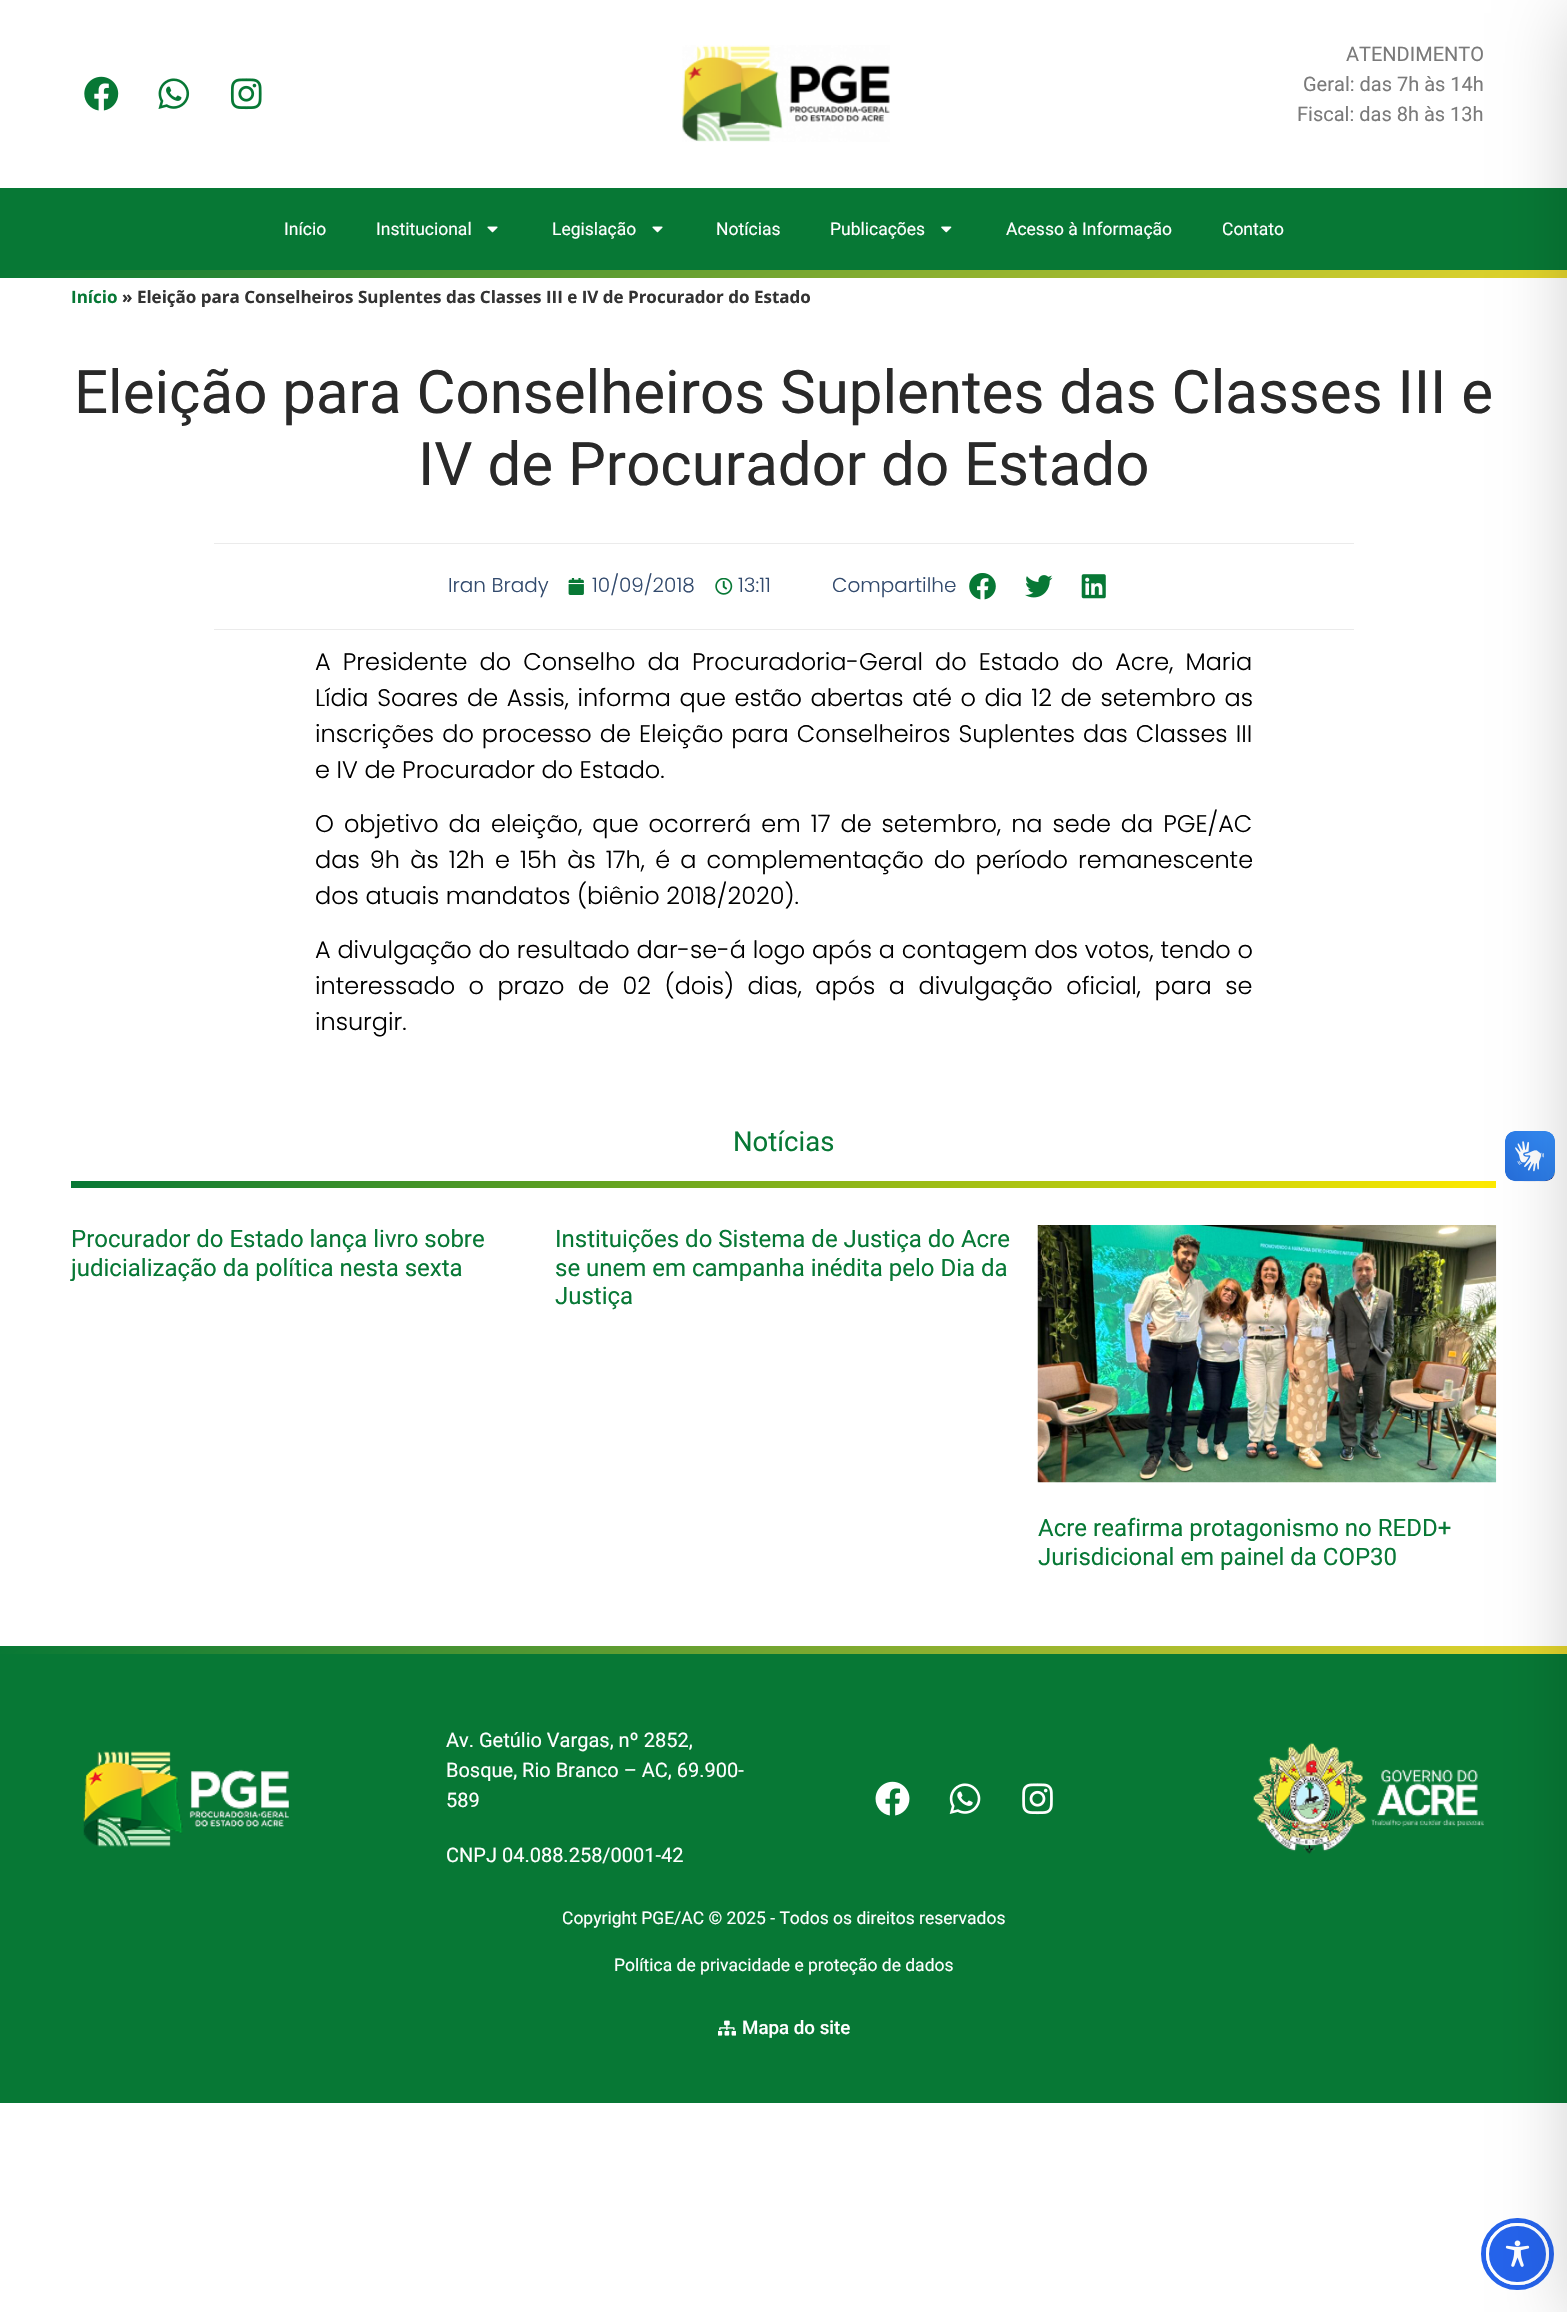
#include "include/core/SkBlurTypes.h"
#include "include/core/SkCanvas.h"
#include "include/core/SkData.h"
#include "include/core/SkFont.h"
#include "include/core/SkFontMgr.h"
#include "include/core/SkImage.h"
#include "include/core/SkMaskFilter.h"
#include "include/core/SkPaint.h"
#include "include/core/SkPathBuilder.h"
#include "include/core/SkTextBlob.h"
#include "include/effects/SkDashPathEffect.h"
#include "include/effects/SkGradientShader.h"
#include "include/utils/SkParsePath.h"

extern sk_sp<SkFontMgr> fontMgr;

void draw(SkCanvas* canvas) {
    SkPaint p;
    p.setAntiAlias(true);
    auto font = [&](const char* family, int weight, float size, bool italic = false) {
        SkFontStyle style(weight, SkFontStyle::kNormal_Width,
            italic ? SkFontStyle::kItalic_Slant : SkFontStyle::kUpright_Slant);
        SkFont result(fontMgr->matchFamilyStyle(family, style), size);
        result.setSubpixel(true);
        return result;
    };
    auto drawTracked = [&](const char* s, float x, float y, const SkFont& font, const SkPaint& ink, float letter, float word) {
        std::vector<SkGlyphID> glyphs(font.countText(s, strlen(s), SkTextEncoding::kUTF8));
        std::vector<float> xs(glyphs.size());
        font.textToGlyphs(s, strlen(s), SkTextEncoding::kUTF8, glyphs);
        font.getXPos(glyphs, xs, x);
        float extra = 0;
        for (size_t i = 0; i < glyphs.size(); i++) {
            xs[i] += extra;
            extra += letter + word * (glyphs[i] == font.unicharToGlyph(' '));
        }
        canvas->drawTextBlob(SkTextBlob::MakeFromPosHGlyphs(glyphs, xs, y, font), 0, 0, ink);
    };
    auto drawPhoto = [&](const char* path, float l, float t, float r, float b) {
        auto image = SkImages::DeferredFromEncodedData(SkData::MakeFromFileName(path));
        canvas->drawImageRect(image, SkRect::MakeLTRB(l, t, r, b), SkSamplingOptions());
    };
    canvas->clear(0xFFFFFFFF);
    drawPhoto("media/1.png", 84, 76, 119, 111);
    drawPhoto("media/2.png", 158, 78, 190, 109);
    drawPhoto("media/3.png", 230, 78, 262, 110);
    drawPhoto("media/4.png", 682, 45, 890, 142);
    auto font1 = font("Roboto", 400, 20);
    p.setColor(0xFF7A7A7A);
    {
        const struct { const char* s; float x, y; } items[] = {
            {"ATENDIMENTO", 1346, 61},
            {"Geral: das 7h às 14h", 1303, 91},
            {"Fiscal: das 8h às 13h", 1297, 121},
        };
        for (auto [s, x, y] : items) {
            canvas->drawString(s, x, y, font1, p);
        }
    }
    p.setColor(0xFF077835);
    canvas->drawRect(SkRect::MakeLTRB(0, 188, 1567, 270), p);
    auto font2 = font("Roboto", 400, 17.5f);
    p.setColor(0xFFFFFFFF);
    canvas->drawString("Início", 284, 235, font2, p);
    canvas->drawString("Institucional", 376, 235, font2, p);
    drawPhoto("media/5.png", 487, 226, 498, 233);
    canvas->drawString("Legislação", 552, 235, font2, p);
    drawPhoto("media/5.png", 652, 226, 663, 233);
    canvas->drawString("Notícias", 716, 235, font2, p);
    canvas->drawString("Publicações", 830, 235, font2, p);
    drawPhoto("media/6.png", 941, 226, 952, 233);
    canvas->drawString("Acesso à Informação", 1006, 235, font2, p);
    canvas->drawString("Contato", 1222, 235, font2, p);
    {
        const SkColor colors[] = {0xFF077835, 0xFFE5D52C};
        const float stops[] = {0, 1};
        const SkPoint ends[] = {{524, -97}, {1043, 645}};
        p.setShader(SkGradientShader::MakeLinear(ends, colors, stops, 2, SkTileMode::kClamp));
        p.setAlpha(255);
    }
    canvas->drawRect(SkRect::MakeLTRB(0, 270, 1567, 278), p);
    auto font3 = font("Open Sans", 700, 17);
    p.setShader(nullptr);
    p.setColor(0xFF077835);
    canvas->drawString("Início", 71, 303, font3, p);
    p.setColor(0xFF333333);
    canvas->drawString("» Eleição para Conselheiros Suplentes das Classes III e IV de Procurador do Estado", 122, 303, font3, p);
    {
        const SkColor colors[] = {0xFF077835, 0xFFFFEA00};
        const float stops[] = {0, 1};
        const SkPoint ends[] = {{548, 848}, {1020, 1521}};
        p.setShader(SkGradientShader::MakeLinear(ends, colors, stops, 2, SkTileMode::kClamp));
        p.setAlpha(255);
    }
    canvas->drawRect(SkRect::MakeLTRB(71, 1181, 1496, 1188), p);
    drawPhoto("media/12.png", 1037, 1225, 1497, 1483);
    drawPhoto("media/13.png", 1505, 1131, 1555, 1182);
    drawPhoto("media/14.png", 1505, 1131, 1555, 1181);
    {
        const SkColor colors[] = {0xFF077835, 0xFFE5D52C};
        const float stops[] = {0, 1};
        const SkPoint ends[] = {{524, 1279}, {1043, 2021}};
        p.setShader(SkGradientShader::MakeLinear(ends, colors, stops, 2, SkTileMode::kClamp));
        p.setAlpha(255);
    }
    canvas->drawRect(SkRect::MakeLTRB(0, 1646, 1567, 1654), p);
    p.setShader(nullptr);
    p.setColor(0xFF077835);
    canvas->drawRect(SkRect::MakeLTRB(0, 1654, 1567, 2103), p);
    drawPhoto("media/19.png", 1253, 1742, 1484, 1854);
    p.setStyle(SkPaint::kStroke_Style);
    p.setStrokeWidth(5);
    p.setColor(0xFF2563EB);
    canvas->drawRoundRect(SkRect::MakeLTRB(1483.5f, 2220.5f, 1551.5f, 2287.5f), 33.5f, 33.5f, p);
    p.setStyle(SkPaint::kFill_Style);
    canvas->drawRoundRect(SkRect::MakeLTRB(1487.5f, 2224.5f, 1547.5f, 2283.5f), 29.5f, 29.5f, p);
    p.setStyle(SkPaint::kStroke_Style);
    p.setStrokeWidth(3);
    p.setColor(0xFFFFFFFF);
    canvas->drawRoundRect(SkRect::MakeLTRB(1487.5f, 2224.5f, 1547.5f, 2283.5f), 29.5f, 29.5f, p);
    drawPhoto("media/21.png", 1505, 2240, 1530, 2267);
    p.setStyle(SkPaint::kFill_Style);
    p.setColor(0x33000000);
    p.setMaskFilter(SkMaskFilter::MakeBlur(kNormal_SkBlurStyle, 37.5f));
    canvas->drawRect(SkRect::MakeLTRB(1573, 13, 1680, 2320), p);
    p.setMaskFilter(nullptr);
    auto font4 = font("Roboto", 400, 60);
    p.setColor(0xFF292929);
    canvas->drawString("Eleição para Conselheiros Suplentes das Classes III e", 74, 413, font4, p);
    canvas->drawString("IV de Procurador do Estado", 418, 485, font4, p);
    p.setColor(0xFFEBEBEB);
    canvas->drawRect(SkRect::MakeLTRB(214, 543, 1354, 544), p);
    auto font5 = font("Poppins", 300, 20);
    p.setColor(0xFF324A6D);
    canvas->drawString("Iran Brady", 448, 592, font5, p);
    drawPhoto("media/7.png", 568, 578, 584, 595);
    canvas->drawString("10/09/2018", 592, 592, font5, p);
    drawPhoto("media/8.png", 715, 578, 733, 595);
    canvas->drawString("13:11", 738, 592, font5, p);
    canvas->drawString("Compartilhe", 832, 592, font5, p);
    drawPhoto("media/9.png", 969, 573, 996, 600);
    drawPhoto("media/10.png", 1025, 575, 1053, 598);
    drawPhoto("media/11.png", 1081, 574, 1106, 599);
    p.setColor(0xFFEBEBEB);
    canvas->drawRect(SkRect::MakeLTRB(214, 629, 1354, 630), p);
    auto font6 = font("Poppins", 300, 24);
    p.setColor(0xFF000000);
    drawTracked("A Presidente do Conselho da Procuradoria-Geral do Estado do Acre, Maria", 315, 670, font6, p, 0, 5.5f);
    drawTracked("Lídia Soares de Assis, informa que estão abertas até o dia 12 de setembro as", 315, 706, font6, p, 0, 2.1f);
    drawTracked("inscrições do processo de Eleição para Conselheiros Suplentes das Classes III", 315, 742, font6, p, 0, 1.5f);
    canvas->drawString("e IV de Procurador do Estado.", 315, 778, font6, p);
    drawTracked("O objetivo da eleição, que ocorrerá em 17 de setembro, na sede da PGE/AC", 315, 832, font6, p, 0, 3.4f);
    drawTracked("das 9h às 12h e 15h às 17h, é a complementação do período remanescente", 315, 868, font6, p, 0, 3.6f);
    canvas->drawString("dos atuais mandatos (biênio 2018/2020).", 315, 904, font6, p);
    drawTracked("A divulgação do resultado dar-se-á logo após a contagem dos votos, tendo o", 315, 958, font6, p, 0, 0.2f);
    drawTracked("interessado o prazo de 02 (dois) dias, após a divulgação oficial, para se", 315, 994, font6, p, 0, 6.9f);
    canvas->drawString("insurgir.", 315, 1030, font6, p);
    auto font7 = font("Roboto", 400, 27.5f);
    p.setColor(0xFF077835);
    canvas->drawString("Notícias", 733, 1151, font7, p);
    auto font8 = font("Roboto", 400, 24);
    {
        const struct { const char* s; float x, y; } items[] = {
            {"Procurador do Estado lança livro sobre", 71, 1247},
            {"judicialização da política nesta sexta", 71, 1276},
            {"Instituições do Sistema de Justiça do Acre", 555, 1247},
            {"se unem em campanha inédita pelo Dia da", 555, 1276},
            {"Justiça", 555, 1304},
            {"Acre reafirma protagonismo no REDD+", 1038, 1536},
            {"Jurisdicional em painel da COP30", 1038, 1565},
        };
        for (auto [s, x, y] : items) {
            canvas->drawString(s, x, y, font8, p);
        }
    }
    drawPhoto("media/15.png", 83, 1751, 289, 1847);
    p.setColor(0xFFFFFFFF);
    {
        const struct { const char* s; float x, y; } items[] = {
            {"Av. Getúlio Vargas, nº 2852,", 446, 1747},
            {"Bosque, Rio Branco – AC, 69.900-", 446, 1777},
            {"589", 446, 1807},
            {"CNPJ 04.088.258/0001-42", 446, 1862},
        };
        for (auto [s, x, y] : items) {
            canvas->drawString(s, x, y, font1, p);
        }
    }
    drawPhoto("media/16.png", 875, 1781, 910, 1816);
    drawPhoto("media/17.png", 949, 1783, 981, 1814);
    drawPhoto("media/18.png", 1022, 1783, 1053, 1815);
    canvas->drawString("Copyright PGE/AC © 2025 - Todos os direitos reservados", 562, 1924, font2, p);
    canvas->drawString("Política de privacidade e proteção de dados", 614, 1971, font2, p);
    drawPhoto("media/20.png", 718, 2020, 736, 2036);
    auto font9 = font("Roboto", 500, 18.75f);
    canvas->drawString("Mapa do site", 742, 2034, font9, p);
}
